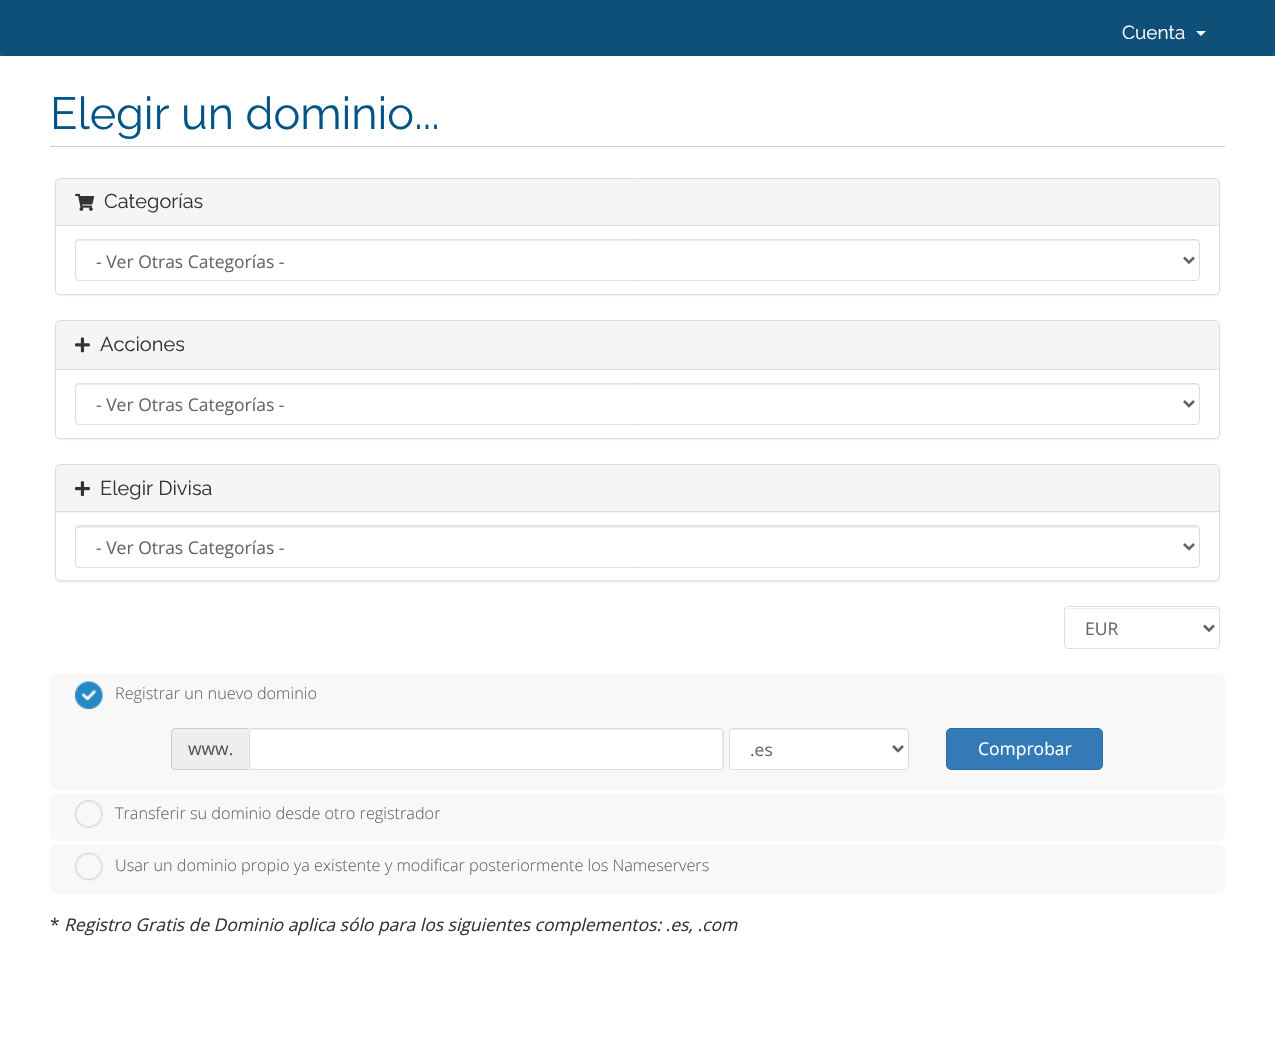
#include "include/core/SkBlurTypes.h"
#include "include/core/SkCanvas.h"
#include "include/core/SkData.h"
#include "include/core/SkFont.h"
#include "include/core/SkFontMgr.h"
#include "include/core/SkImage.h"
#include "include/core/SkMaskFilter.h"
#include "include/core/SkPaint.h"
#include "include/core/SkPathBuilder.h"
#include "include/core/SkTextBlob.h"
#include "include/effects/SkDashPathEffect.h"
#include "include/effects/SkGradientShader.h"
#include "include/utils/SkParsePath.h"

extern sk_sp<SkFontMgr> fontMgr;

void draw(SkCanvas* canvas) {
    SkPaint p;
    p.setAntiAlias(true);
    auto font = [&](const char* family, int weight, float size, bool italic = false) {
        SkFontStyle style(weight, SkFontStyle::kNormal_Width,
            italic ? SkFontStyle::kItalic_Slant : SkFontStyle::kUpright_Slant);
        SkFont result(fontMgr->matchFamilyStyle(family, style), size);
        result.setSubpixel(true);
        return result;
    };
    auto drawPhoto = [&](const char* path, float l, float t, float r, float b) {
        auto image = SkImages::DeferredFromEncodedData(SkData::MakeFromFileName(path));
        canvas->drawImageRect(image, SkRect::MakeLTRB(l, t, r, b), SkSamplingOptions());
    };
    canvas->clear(0xFF006687);
    p.setColor(0xFF0E5077);
    canvas->drawRoundRect(SkRect::MakeLTRB(0, -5, 1275, 56), 5, 5, p);
    auto font1 = font("Raleway", 400, 19);
    p.setColor(0xFFFFFFFF);
    canvas->drawString("Cuenta", 1122, 39, font1, p);
    canvas->drawPath(SkPathBuilder().moveTo(1196, 31).lineTo(1206, 31).lineTo(1201, 36).close().detach(), p);
    canvas->drawRect(SkRect::MakeLTRB(0, 56, 1275, 1053), p);
    p.setColor(0xFFCCCCCC);
    canvas->drawRect(SkRect::MakeLTRB(50, 146, 1225, 147), p);
    auto font2 = font("Raleway", 400, 45);
    p.setColor(0xFF005588);
    canvas->drawString("Elegir un dominio...", 50, 129, font2, p);
    p.setColor(0x0D000000);
    p.setMaskFilter(SkMaskFilter::MakeBlur(kNormal_SkBlurStyle, 0.5f));
    canvas->drawRoundRect(SkRect::MakeLTRB(55, 179, 1220, 296), 5, 5, p);
    p.setMaskFilter(nullptr);
    p.setColor(0xFFFFFFFF);
    canvas->drawRoundRect(SkRect::MakeLTRB(55.5f, 178.5f, 1219.5f, 294.5f), 4.5f, 4.5f, p);
    p.setStyle(SkPaint::kStroke_Style);
    p.setStrokeWidth(1);
    p.setColor(0xFFDDDDDD);
    canvas->drawRoundRect(SkRect::MakeLTRB(55.5f, 178.5f, 1219.5f, 294.5f), 4.5f, 4.5f, p);
    p.setStyle(SkPaint::kFill_Style);
    p.setColor(0xFFF5F5F5);
    canvas->drawPath(SkPathBuilder().moveTo(60, 179).lineTo(1215, 179).cubicTo(1217, 179, 1219, 181, 1219, 183).lineTo(1219, 226).lineTo(56, 226).lineTo(56, 183).cubicTo(56, 181, 58, 179, 60, 179).close().detach(), p);
    p.setColor(0xFFDDDDDD);
    canvas->drawRect(SkRect::MakeLTRB(56, 225, 1219, 226), p);
    drawPhoto("media/1.png", 75, 193, 95, 211);
    auto font3 = font("Raleway", 400, 20);
    p.setColor(0xFF333333);
    canvas->drawString("Categorías", 104, 208, font3, p);
    p.setColor(0xFFECECEC);
    canvas->drawPath(SkPathBuilder().moveTo(79, 241).lineTo(1196, 241).cubicTo(1198, 241, 1199, 242, 1199, 244).cubicTo(1199, 242, 1199, 240, 1196, 240).lineTo(78, 240).cubicTo(76, 240, 76, 242, 76, 244).cubicTo(76, 242, 77, 241, 79, 241).close().detach(), p);
    p.setStyle(SkPaint::kStroke_Style);
    p.setColor(0xFFDDDDDD);
    canvas->drawRoundRect(SkRect::MakeLTRB(75.5f, 239.5f, 1199.5f, 280.5f), 3.5f, 3.5f, p);
    p.setStrokeWidth(2.5f);
    p.setColor(0xFF626262);
    canvas->drawPath(SkPathBuilder().moveTo(1184, 257.5f).lineTo(1189, 262.5f).lineTo(1194, 257.5f).detach(), p);
    auto font4 = font("Open Sans", 400, 17.5f);
    p.setStyle(SkPaint::kFill_Style);
    p.setColor(0xFF666666);
    canvas->drawString("- Ver Otras Categorías -", 96, 268, font4, p);
    p.setColor(0x0D000000);
    p.setMaskFilter(SkMaskFilter::MakeBlur(kNormal_SkBlurStyle, 0.5f));
    canvas->drawRoundRect(SkRect::MakeLTRB(55, 321, 1220, 440), 5, 5, p);
    p.setMaskFilter(nullptr);
    p.setColor(0xFFFFFFFF);
    canvas->drawRoundRect(SkRect::MakeLTRB(55.5f, 320.5f, 1219.5f, 438.5f), 4.5f, 4.5f, p);
    p.setStyle(SkPaint::kStroke_Style);
    p.setStrokeWidth(1);
    p.setColor(0xFFDDDDDD);
    canvas->drawRoundRect(SkRect::MakeLTRB(55.5f, 320.5f, 1219.5f, 438.5f), 4.5f, 4.5f, p);
    p.setStyle(SkPaint::kFill_Style);
    p.setColor(0xFFF5F5F5);
    canvas->drawPath(SkPathBuilder().moveTo(60, 321).lineTo(1215, 321).cubicTo(1217, 321, 1219, 323, 1219, 325).lineTo(1219, 370).lineTo(56, 370).lineTo(56, 325).cubicTo(56, 323, 58, 321, 60, 321).close().detach(), p);
    p.setColor(0xFFDDDDDD);
    canvas->drawRect(SkRect::MakeLTRB(56, 369, 1219, 370), p);
    drawPhoto("media/2.png", 75, 337, 90, 353);
    p.setColor(0xFF333333);
    canvas->drawString("Acciones", 100, 351, font3, p);
    p.setColor(0xFFECECEC);
    canvas->drawPath(SkPathBuilder().moveTo(79, 385).lineTo(1196, 385).cubicTo(1198, 385, 1199, 386, 1199, 388).cubicTo(1199, 386, 1199, 384, 1196, 384).lineTo(78, 384).cubicTo(76, 384, 76, 386, 76, 388).cubicTo(76, 386, 77, 385, 79, 385).close().detach(), p);
    p.setStyle(SkPaint::kStroke_Style);
    p.setColor(0xFFDDDDDD);
    canvas->drawRoundRect(SkRect::MakeLTRB(75.5f, 383.5f, 1199.5f, 424.5f), 3.5f, 3.5f, p);
    p.setStrokeWidth(2.5f);
    p.setColor(0xFF626262);
    canvas->drawPath(SkPathBuilder().moveTo(1184, 401).lineTo(1189, 406).lineTo(1194, 401).detach(), p);
    p.setStyle(SkPaint::kFill_Style);
    p.setColor(0xFF666666);
    canvas->drawString("- Ver Otras Categorías -", 96, 411, font4, p);
    p.setColor(0x0D000000);
    p.setMaskFilter(SkMaskFilter::MakeBlur(kNormal_SkBlurStyle, 0.5f));
    canvas->drawRoundRect(SkRect::MakeLTRB(55, 465, 1220, 583), 5, 5, p);
    p.setMaskFilter(nullptr);
    p.setColor(0xFFFFFFFF);
    canvas->drawRoundRect(SkRect::MakeLTRB(55.5f, 464.5f, 1219.5f, 580.5f), 4.5f, 4.5f, p);
    p.setStyle(SkPaint::kStroke_Style);
    p.setStrokeWidth(1);
    p.setColor(0xFFDDDDDD);
    canvas->drawRoundRect(SkRect::MakeLTRB(55.5f, 464.5f, 1219.5f, 580.5f), 4.5f, 4.5f, p);
    p.setStyle(SkPaint::kFill_Style);
    p.setColor(0xFFF5F5F5);
    canvas->drawPath(SkPathBuilder().moveTo(60, 465).lineTo(1215, 465).cubicTo(1217, 465, 1219, 467, 1219, 469).lineTo(1219, 513).lineTo(56, 513).lineTo(56, 469).cubicTo(56, 467, 58, 465, 60, 465).close().detach(), p);
    p.setColor(0xFFDDDDDD);
    canvas->drawRect(SkRect::MakeLTRB(56, 511, 1219, 512), p);
    drawPhoto("media/3.png", 75, 481, 90, 497);
    p.setColor(0xFF333333);
    canvas->drawString("Elegir Divisa", 100, 495, font3, p);
    p.setColor(0xFFECECEC);
    canvas->drawPath(SkPathBuilder().moveTo(79, 528).lineTo(1196, 528).cubicTo(1198, 528, 1199, 529, 1199, 530).cubicTo(1199, 528, 1199, 526, 1196, 526).lineTo(78, 526).cubicTo(76, 526, 76, 528, 76, 530).cubicTo(76, 529, 77, 528, 79, 528).close().detach(), p);
    p.setStyle(SkPaint::kStroke_Style);
    p.setColor(0xFFDDDDDD);
    canvas->drawRoundRect(SkRect::MakeLTRB(75.5f, 525.5f, 1199.5f, 567.5f), 3.5f, 3.5f, p);
    p.setStrokeWidth(2.5f);
    p.setColor(0xFF626262);
    canvas->drawPath(SkPathBuilder().moveTo(1184, 544).lineTo(1189, 549).lineTo(1194, 544).detach(), p);
    p.setStyle(SkPaint::kFill_Style);
    p.setColor(0xFF666666);
    canvas->drawString("- Ver Otras Categorías -", 96, 554, font4, p);
    p.setColor(0xFFECECEC);
    canvas->drawPath(SkPathBuilder().moveTo(1068, 609).lineTo(1216, 609).cubicTo(1218, 609, 1219, 610, 1219, 611).cubicTo(1219, 609, 1218, 608, 1216, 608).lineTo(1068, 608).cubicTo(1066, 608, 1065, 609, 1065, 611).cubicTo(1065, 610, 1066, 609, 1068, 609).close().detach(), p);
    p.setStyle(SkPaint::kStroke_Style);
    p.setStrokeWidth(1);
    p.setColor(0xFFDDDDDD);
    canvas->drawRoundRect(SkRect::MakeLTRB(1064.5f, 606.5f, 1219.5f, 648.5f), 3.5f, 3.5f, p);
    p.setStrokeWidth(2.5f);
    p.setColor(0xFF626262);
    canvas->drawPath(SkPathBuilder().moveTo(1204, 625.5f).lineTo(1209, 630.5f).lineTo(1214, 625.5f).detach(), p);
    p.setStyle(SkPaint::kFill_Style);
    p.setColor(0xFF666666);
    canvas->drawString("EUR", 1085, 635, font4, p);
    p.setColor(0xFFF8F8F8);
    canvas->drawRoundRect(SkRect::MakeLTRB(50, 673, 1225, 790), 8, 8, p);
    drawPhoto("media/4.png", 75, 681, 103, 709);
    auto font5 = font("Open Sans", 300, 16.25f);
    p.setColor(0xFF666666);
    canvas->drawString("Registrar un nuevo dominio", 115, 699, font5, p);
    p.setColor(0xFFEEEEEE);
    canvas->drawPath(SkPathBuilder().moveTo(176, 728).lineTo(249, 728).lineTo(249, 770).lineTo(176, 770).cubicTo(173, 770, 171, 768, 171, 765).lineTo(171, 733).cubicTo(171, 730, 173, 728, 176, 728).close().detach(), p);
    p.setColor(0xFFCCCCCC);
    canvas->drawPath(SkPathBuilder(SkPathFillType::kEvenOdd).moveTo(176, 728).lineTo(249, 728).lineTo(249, 770).lineTo(176, 770).cubicTo(173, 770, 171, 768, 171, 765).lineTo(171, 732).cubicTo(171, 730, 173, 728, 176, 728).close().moveTo(176, 729).lineTo(249, 729).lineTo(249, 769).lineTo(176, 769).cubicTo(174, 769, 172, 767, 172, 765).lineTo(172, 732).cubicTo(172, 730, 174, 729, 176, 729).close().detach(), p);
    p.setColor(0xFF555555);
    canvas->drawString("www.", 188, 755, font4, p);
    p.setColor(0xFFFFFFFF);
    canvas->drawRoundRect(SkRect::MakeLTRB(249, 728, 724, 770), 4, 4, p);
    p.setColor(0xFFECECEC);
    canvas->drawPath(SkPathBuilder().moveTo(252, 730).lineTo(720, 730).cubicTo(721, 730, 722, 731, 722, 732).lineTo(722, 769).cubicTo(723, 768, 723, 767, 723, 766).lineTo(723, 732).cubicTo(723, 730, 722, 729, 720, 729).lineTo(252, 729).cubicTo(251, 729, 250, 730, 250, 732).cubicTo(250, 731, 251, 730, 252, 730).close().detach(), p);
    p.setStyle(SkPaint::kStroke_Style);
    p.setStrokeWidth(1);
    p.setColor(0xFFDDDDDD);
    canvas->drawRoundRect(SkRect::MakeLTRB(249.5f, 728.5f, 723.5f, 769.5f), 3.5f, 3.5f, p);
    p.setStyle(SkPaint::kFill_Style);
    p.setColor(0xFFFFFFFF);
    canvas->drawRoundRect(SkRect::MakeLTRB(729, 728, 909, 770), 4, 4, p);
    p.setColor(0xFFECECEC);
    canvas->drawPath(SkPathBuilder().moveTo(732, 730).lineTo(905, 730).cubicTo(906, 730, 908, 731, 908, 732).cubicTo(908, 730, 907, 729, 906, 729).lineTo(732, 729).lineTo(731, 730).lineTo(730, 732).cubicTo(730, 731, 731, 730, 732, 730).close().detach(), p);
    p.setStyle(SkPaint::kStroke_Style);
    p.setColor(0xFFDDDDDD);
    canvas->drawRoundRect(SkRect::MakeLTRB(729.5f, 728.5f, 908.5f, 769.5f), 3.5f, 3.5f, p);
    p.setStrokeWidth(2.5f);
    p.setColor(0xFF626262);
    canvas->drawPath(SkPathBuilder().moveTo(893, 746).lineTo(898, 751).lineTo(903, 746).detach(), p);
    p.setStyle(SkPaint::kFill_Style);
    p.setColor(0xFF666666);
    canvas->drawString(".es", 750, 756, font4, p);
    p.setColor(0xFF337AB7);
    canvas->drawRoundRect(SkRect::MakeLTRB(946.5f, 728.5f, 1102.5f, 769.5f), 4.5f, 4.5f, p);
    p.setStyle(SkPaint::kStroke_Style);
    p.setStrokeWidth(1);
    p.setColor(0xFF2E6DA4);
    canvas->drawRoundRect(SkRect::MakeLTRB(946.5f, 728.5f, 1102.5f, 769.5f), 4.5f, 4.5f, p);
    p.setStyle(SkPaint::kFill_Style);
    p.setColor(0xFFFFFFFF);
    canvas->drawString("Comprobar", 978, 755, font4, p);
    p.setColor(0xFFF8F8F8);
    canvas->drawRoundRect(SkRect::MakeLTRB(50, 793, 1225, 841), 8, 8, p);
    drawPhoto("media/5.png", 75, 800, 103, 828);
    p.setColor(0xFF666666);
    canvas->drawString("Transferir su dominio desde otro registrador", 115, 819, font5, p);
    p.setColor(0xFFF8F8F8);
    canvas->drawRoundRect(SkRect::MakeLTRB(50, 844, 1225, 894), 8, 8, p);
    drawPhoto("media/6.png", 75, 852, 103, 881);
    p.setColor(0xFF666666);
    canvas->drawString("Usar un dominio propio ya existente y modificar posteriormente los Nameservers", 115, 871, font5, p);
    p.setColor(0xFF333333);
    canvas->drawString("*", 50, 931, font4, p);
    auto font6 = font("Open Sans", 400, 17.5f, true);
    canvas->drawString("Registro Gratis de Dominio aplica sólo para los siguientes complementos: .es, .com", 64, 931, font6, p);
}
